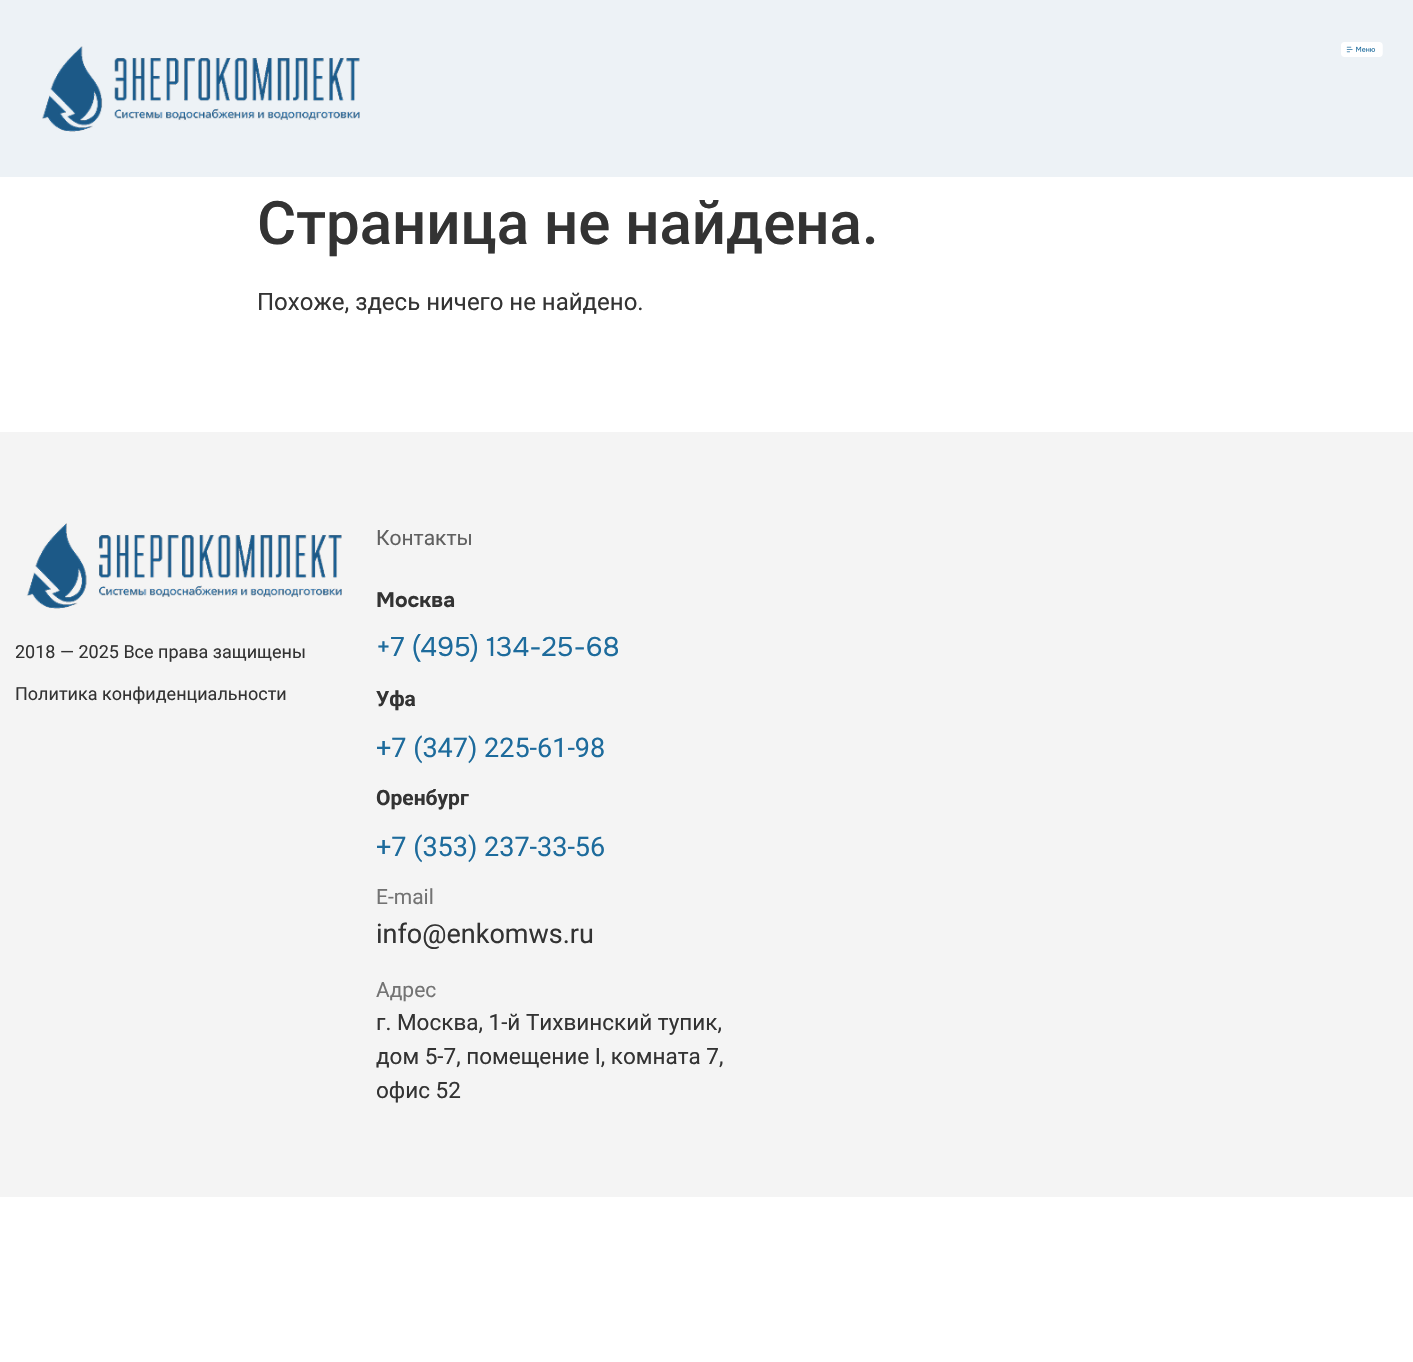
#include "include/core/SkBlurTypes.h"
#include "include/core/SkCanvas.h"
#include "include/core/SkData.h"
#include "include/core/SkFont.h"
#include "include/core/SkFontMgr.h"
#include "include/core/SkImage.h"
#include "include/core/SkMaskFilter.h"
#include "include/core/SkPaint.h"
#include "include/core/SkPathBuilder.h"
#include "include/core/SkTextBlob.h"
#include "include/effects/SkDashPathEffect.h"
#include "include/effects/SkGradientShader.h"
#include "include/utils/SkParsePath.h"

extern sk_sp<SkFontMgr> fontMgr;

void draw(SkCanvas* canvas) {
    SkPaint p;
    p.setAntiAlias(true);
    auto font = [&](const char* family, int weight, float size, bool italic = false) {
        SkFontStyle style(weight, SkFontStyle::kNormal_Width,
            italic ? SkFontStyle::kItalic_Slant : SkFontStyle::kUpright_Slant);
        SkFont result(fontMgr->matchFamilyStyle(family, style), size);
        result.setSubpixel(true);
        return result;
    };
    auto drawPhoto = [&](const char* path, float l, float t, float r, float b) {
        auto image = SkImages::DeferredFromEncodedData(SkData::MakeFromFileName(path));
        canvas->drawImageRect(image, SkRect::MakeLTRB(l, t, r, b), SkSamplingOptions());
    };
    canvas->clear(0xFFFFFFFF);
    p.setColor(0xFFEDF2F6);
    canvas->drawRect(SkRect::MakeLTRB(0, 0, 1413, 177), p);
    drawPhoto("media/1.png", 42, 46, 360, 132);
    drawPhoto("media/2.png", 1341, 42, 1383, 57);
    auto font1 = font("Roboto", 500, 60);
    p.setColor(0xFF333333);
    canvas->drawString("Страница не найдена.", 257, 244, font1, p);
    auto font2 = font("Roboto", 400, 24);
    canvas->drawString("Похоже, здесь ничего не найдено.", 257, 310, font2, p);
    p.setColor(0xFFF4F4F4);
    canvas->drawRect(SkRect::MakeLTRB(0, 432, 1413, 1197), p);
    drawPhoto("media/3.png", 26, 523, 342, 609);
    auto font3 = font("Roboto", 400, 18);
    p.setColor(0xFF333333);
    canvas->drawString("2018 — 2025 Все права защищены", 15, 658, font3, p);
    canvas->drawString("Политика конфиденциальности", 15, 700, font3, p);
    auto font4 = font("Roboto", 400, 21);
    p.setColor(0xFF606060);
    canvas->drawString("Контакты", 376, 545, font4, p);
    auto font5 = font("Onest", 700, 21);
    p.setColor(0xFF333333);
    canvas->drawString("Москва", 376, 607, font5, p);
    auto font6 = font("Onest", 400, 27);
    p.setColor(0xFF1D6B9C);
    canvas->drawString("+7 (495) 134-25-68", 376, 656, font6, p);
    auto font7 = font("Roboto", 700, 21);
    p.setColor(0xFF333333);
    canvas->drawString("Уфа", 376, 706, font7, p);
    auto font8 = font("Roboto", 400, 27);
    p.setColor(0xFF1D6B9C);
    canvas->drawString("+7 (347) 225-61-98", 376, 757, font8, p);
    p.setColor(0xFF333333);
    canvas->drawString("Оренбург", 376, 805, font7, p);
    p.setColor(0xFF1D6B9C);
    canvas->drawString("+7 (353) 237-33-56", 376, 856, font8, p);
    p.setColor(0xFF737373);
    canvas->drawString("E-mail", 376, 904, font4, p);
    p.setColor(0xFF333333);
    canvas->drawString("info@enkomws.ru", 376, 943, font8, p);
    p.setColor(0xFF737373);
    canvas->drawString("Адрес", 376, 997, font4, p);
    auto font9 = font("Roboto", 400, 22.5f);
    p.setColor(0xFF333333);
    {
        const struct { const char* s; float x, y; } items[] = {
            {"г. Москва, 1-й Тихвинский тупик,", 376, 1030},
            {"дом 5-7, помещение I, комната 7,", 376, 1064},
            {"офис 52", 376, 1098},
        };
        for (auto [s, x, y] : items) {
            canvas->drawString(s, x, y, font9, p);
        }
    }
}
